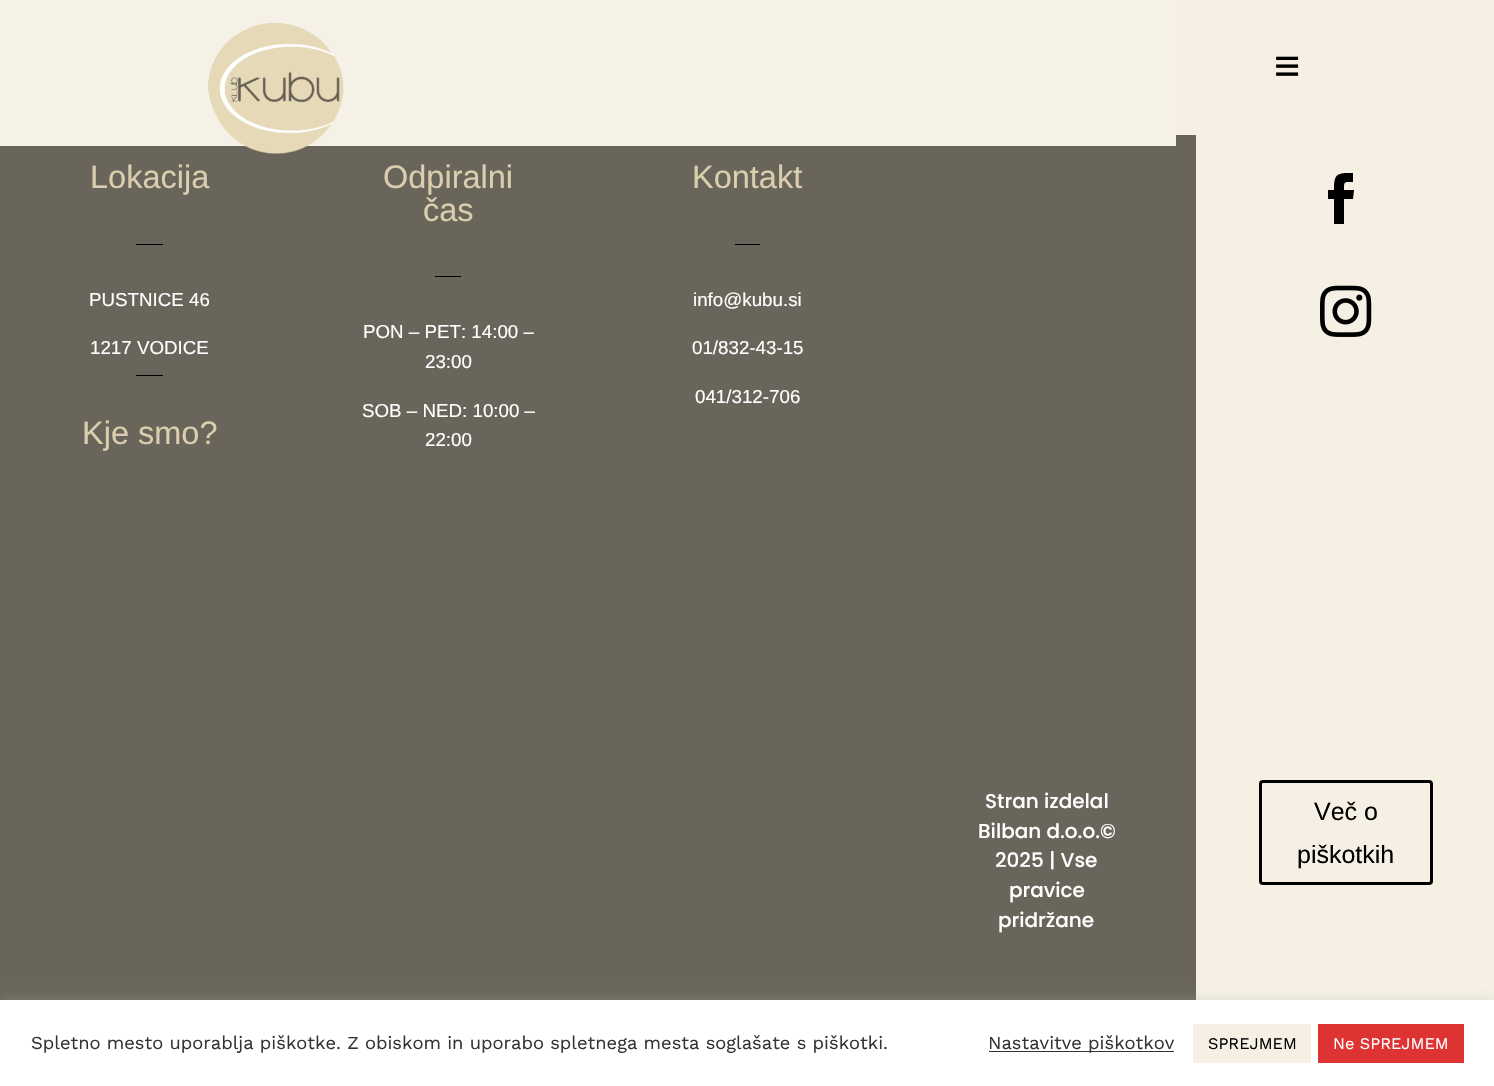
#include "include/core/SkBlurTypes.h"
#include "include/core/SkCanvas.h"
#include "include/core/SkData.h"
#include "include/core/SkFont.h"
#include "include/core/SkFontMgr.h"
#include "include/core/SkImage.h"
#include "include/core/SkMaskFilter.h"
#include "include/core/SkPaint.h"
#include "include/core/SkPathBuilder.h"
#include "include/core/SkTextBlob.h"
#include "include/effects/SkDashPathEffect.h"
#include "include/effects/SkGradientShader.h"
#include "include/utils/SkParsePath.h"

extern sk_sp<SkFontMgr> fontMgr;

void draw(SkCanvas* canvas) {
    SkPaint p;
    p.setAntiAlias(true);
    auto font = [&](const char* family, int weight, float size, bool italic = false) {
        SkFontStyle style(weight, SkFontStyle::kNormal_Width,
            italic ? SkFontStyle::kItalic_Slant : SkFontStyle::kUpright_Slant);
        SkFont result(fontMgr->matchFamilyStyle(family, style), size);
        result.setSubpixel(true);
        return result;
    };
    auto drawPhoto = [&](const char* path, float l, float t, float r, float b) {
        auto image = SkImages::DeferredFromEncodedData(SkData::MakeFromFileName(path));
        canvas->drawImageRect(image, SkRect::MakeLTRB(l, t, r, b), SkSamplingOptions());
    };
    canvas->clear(0xFF6A655A);
    p.setColor(0xFFF6F1E6);
    canvas->drawRect(SkRect::MakeLTRB(0, 0, 1176, 146), p);
    drawPhoto("media/1.png", 208, 23, 344, 154);
    p.setColor(0xFFF5F0E3);
    canvas->drawRect(SkRect::MakeLTRB(1176, 0, 1494, 135), p);
    auto font1 = font("Liberation Sans", 400, 45);
    p.setColor(0xFF000000);
    canvas->drawString("≡", 1274, 81, font1, p);
    auto font2 = font("Liberation Sans", 400, 32.5f);
    p.setColor(0xFFDACEAE);
    canvas->drawString("Lokacija", 90, 188, font2, p);
    p.setColor(0xFF000000);
    canvas->drawRect(SkRect::MakeLTRB(136, 244, 163, 245), p);
    auto font3 = font("Liberation Sans", 400, 18.75f);
    p.setColor(0xFFFFFFFF);
    canvas->drawString("PUSTNICE 46", 89, 306, font3, p);
    canvas->drawString("1217 VODICE", 90, 354, font3, p);
    p.setColor(0xFF000000);
    canvas->drawRect(SkRect::MakeLTRB(136, 375, 163, 376), p);
    p.setColor(0xFFDACEAE);
    {
        const struct { const char* s; float x, y; } items[] = {
            {"Kje smo?", 82, 444},
            {"Odpiralni", 383, 188},
            {"čas", 423, 221},
        };
        for (auto [s, x, y] : items) {
            canvas->drawString(s, x, y, font2, p);
        }
    }
    p.setColor(0xFF000000);
    canvas->drawRect(SkRect::MakeLTRB(435, 276, 461, 277), p);
    p.setColor(0xFFFFFFFF);
    {
        const struct { const char* s; float x, y; } items[] = {
            {"PON – PET: 14:00 –", 363, 338},
            {"23:00", 425, 368},
            {"SOB – NED: 10:00 –", 362, 417},
            {"22:00", 425, 446},
        };
        for (auto [s, x, y] : items) {
            canvas->drawString(s, x, y, font3, p);
        }
    }
    p.setColor(0xFFDACEAE);
    canvas->drawString("Kontakt", 692, 188, font2, p);
    p.setColor(0xFF000000);
    canvas->drawRect(SkRect::MakeLTRB(735, 244, 760, 245), p);
    p.setColor(0xFFFFFFFF);
    {
        const struct { const char* s; float x, y; } items[] = {
            {"info@kubu.si", 693, 306},
            {"01/832-43-15", 692, 354},
            {"041/312-706", 695, 403},
        };
        for (auto [s, x, y] : items) {
            canvas->drawString(s, x, y, font3, p);
        }
    }
    p.setColor(0xFFF5F0E3);
    canvas->drawRect(SkRect::MakeLTRB(1196, 135, 1494, 1000), p);
    p.setColor(0xFF000000);
    canvas->drawPath(SkPathBuilder().moveTo(1334, 224).lineTo(1344, 224).lineTo(1344, 199).lineTo(1353, 199).lineTo(1354, 190).lineTo(1344, 190).cubicTo(1344, 181, 1344, 182, 1353, 182).lineTo(1353, 173).cubicTo(1337, 173, 1334, 173, 1334, 190).lineTo(1328, 190).lineTo(1328, 199).lineTo(1334, 199).close().detach(), p);
    drawPhoto("media/2.png", 1320, 285, 1372, 337);
    auto font4 = font("Poppins", 500, 20);
    p.setColor(0xFFFFFFFF);
    {
        const struct { const char* s; float x, y; } items[] = {
            {"Stran izdelal", 985, 808},
            {"Bilban d.o.o.©", 978, 838},
            {"2025 | Vse", 995, 867},
            {"pravice", 1009, 897},
            {"pridržane", 998, 927},
        };
        for (auto [s, x, y] : items) {
            canvas->drawString(s, x, y, font4, p);
        }
    }
    p.setStyle(SkPaint::kStroke_Style);
    p.setStrokeWidth(3);
    p.setColor(0xFF000000);
    canvas->drawRoundRect(SkRect::MakeLTRB(1260.5f, 781.5f, 1431.5f, 883.5f), 2.5f, 2.5f, p);
    auto font5 = font("Liberation Sans", 400, 25);
    p.setStyle(SkPaint::kFill_Style);
    canvas->drawString("Več o", 1314, 820, font5, p);
    canvas->drawString("piškotkih", 1297, 863, font5, p);
    p.setColor(0x4DACABAB);
    p.setMaskFilter(SkMaskFilter::MakeBlur(kNormal_SkBlurStyle, 6));
    canvas->drawRect(SkRect::MakeLTRB(0, 999, 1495, 1085), p);
    p.setMaskFilter(nullptr);
    p.setColor(0xFFFFFFFF);
    canvas->drawRect(SkRect::MakeLTRB(0, 1000, 1494, 1086), p);
    auto font6 = font("Work Sans", 400, 18.35f);
    p.setColor(0xFF333333);
    canvas->drawString("Spletno mesto uporablja piškotke. Z obiskom in uporabo spletnega mesta soglašate s piškotki.", 31, 1049, font6, p);
    canvas->drawRect(SkRect::MakeLTRB(989, 1051, 1174, 1052), p);
    canvas->drawString("Nastavitve piškotkov", 988, 1049, font6, p);
    p.setColor(0xFFF5F0E3);
    canvas->drawRect(SkRect::MakeLTRB(1193, 1024, 1311, 1063), p);
    auto font7 = font("Work Sans", 400, 16.25f);
    p.setColor(0xFF000000);
    canvas->drawString("SPREJMEM", 1208, 1049, font7, p);
    p.setColor(0xFFDD3333);
    canvas->drawRect(SkRect::MakeLTRB(1318, 1024, 1464, 1063), p);
    p.setColor(0xFFFFFFFF);
    canvas->drawString("Ne SPREJMEM", 1333, 1049, font7, p);
}
